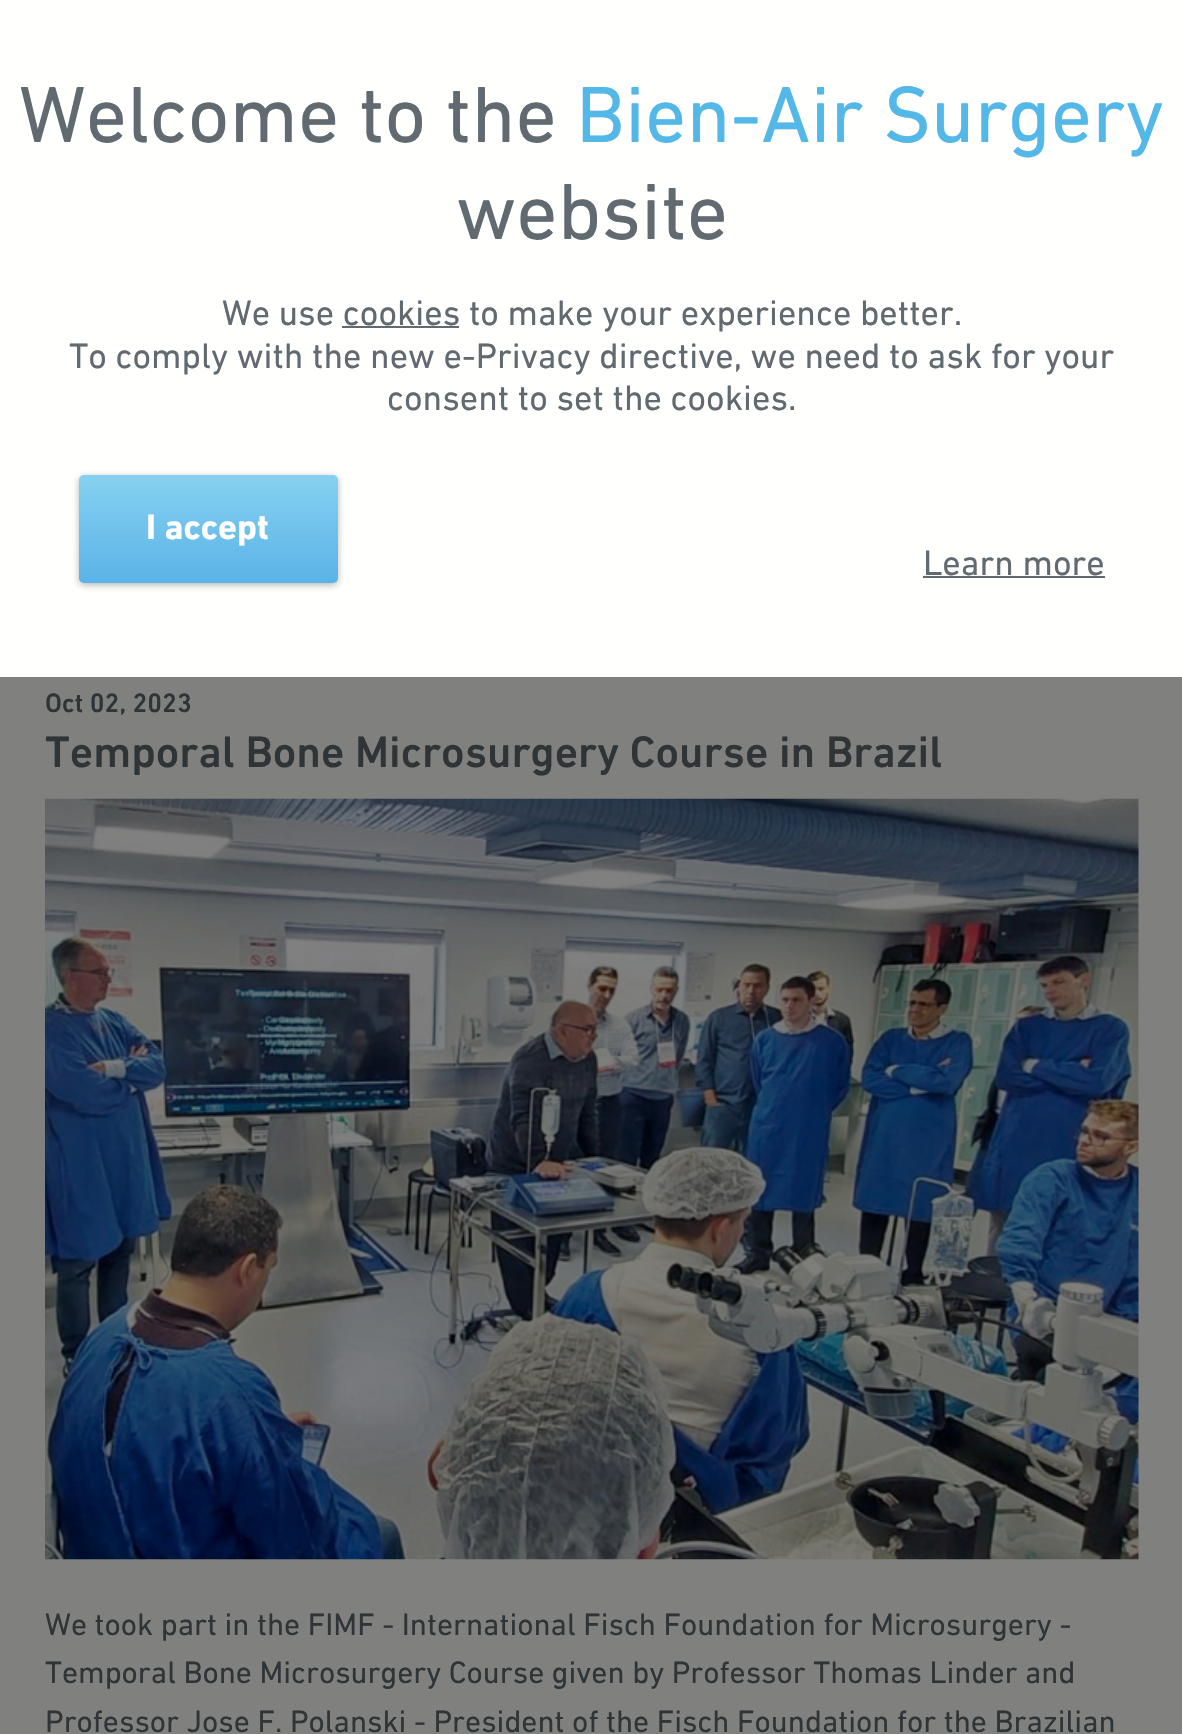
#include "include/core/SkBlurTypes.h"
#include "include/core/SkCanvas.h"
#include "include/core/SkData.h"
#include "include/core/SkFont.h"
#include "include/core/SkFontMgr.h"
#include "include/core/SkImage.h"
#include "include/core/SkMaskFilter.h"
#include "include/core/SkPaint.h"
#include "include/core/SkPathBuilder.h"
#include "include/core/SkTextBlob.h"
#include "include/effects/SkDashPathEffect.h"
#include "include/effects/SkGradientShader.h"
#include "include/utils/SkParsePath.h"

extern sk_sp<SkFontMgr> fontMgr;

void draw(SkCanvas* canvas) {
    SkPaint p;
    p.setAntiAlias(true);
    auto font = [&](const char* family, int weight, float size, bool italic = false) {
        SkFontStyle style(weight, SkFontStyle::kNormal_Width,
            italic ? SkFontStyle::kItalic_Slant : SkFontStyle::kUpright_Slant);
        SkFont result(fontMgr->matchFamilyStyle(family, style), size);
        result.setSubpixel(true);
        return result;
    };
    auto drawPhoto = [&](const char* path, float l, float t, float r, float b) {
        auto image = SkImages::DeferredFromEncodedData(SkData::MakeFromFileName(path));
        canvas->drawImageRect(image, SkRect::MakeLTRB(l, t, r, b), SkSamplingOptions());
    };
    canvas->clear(0xFF80807F);
    p.setColor(0xFFFFFFFE);
    canvas->drawRect(SkRect::MakeLTRB(0, 0, 1182, 677), p);
    auto font1 = font("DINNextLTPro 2", 400, 81);
    p.setColor(0xFF606A70);
    canvas->drawString("Welcome to the", 19, 142, font1, p);
    p.setColor(0xFF53B7E8);
    canvas->drawString("Bien-Air Surgery", 576, 142, font1, p);
    p.setColor(0xFF606A70);
    canvas->drawString("website", 456, 239, font1, p);
    auto font2 = font("DINNextLTPro 2", 400, 36);
    canvas->drawString("We use cookies to make your experience better.", 222, 325, font2, p);
    canvas->drawRect(SkRect::MakeLTRB(342, 326, 459, 328), p);
    canvas->drawString("To comply with the new e-Privacy directive, we need to ask for your", 69, 368, font2, p);
    canvas->drawString("consent to set the cookies.", 387, 410, font2, p);
    p.setColor(0xFCB4B4B4);
    p.setMaskFilter(SkMaskFilter::MakeBlur(kNormal_SkBlurStyle, 3.5f));
    canvas->drawRoundRect(SkRect::MakeLTRB(79, 477, 338, 585), 5, 5, p);
    p.setMaskFilter(nullptr);
    {
        const SkColor colors[] = {0xFF86D1F1, 0xFF5AB3E7};
        const float stops[] = {0, 1};
        const SkPoint ends[] = {{208, 475}, {208, 583}};
        p.setShader(SkGradientShader::MakeLinear(ends, colors, stops, 2, SkTileMode::kClamp));
        p.setAlpha(255);
    }
    canvas->drawRoundRect(SkRect::MakeLTRB(79, 475, 338, 583), 5, 5, p);
    auto font3 = font("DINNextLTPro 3", 400, 36);
    p.setShader(nullptr);
    p.setColor(0xFFFFFFFE);
    canvas->drawString("I accept", 146, 539, font3, p);
    p.setColor(0xFF606A70);
    canvas->drawString("Learn more", 923, 575, font2, p);
    canvas->drawRect(SkRect::MakeLTRB(923, 576, 1105, 578), p);
    auto font4 = font("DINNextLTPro", 400, 27);
    p.setColor(0xFF2F3437);
    canvas->drawString("Oct 02, 2023", 45, 712, font4, p);
    auto font5 = font("DINNextLTPro", 400, 45);
    canvas->drawString("Temporal Bone Microsurgery Course in Brazil", 45, 767, font5, p);
    drawPhoto("media/1.png", 45, 798, 1139, 1560);
    auto font6 = font("DINNextLTPro 2", 400, 31.5f);
    {
        const struct { const char* s; float x, y; } items[] = {
            {"We took part in the FIMF - International Fisch Foundation for Microsurgery -", 45, 1635},
            {"Temporal Bone Microsurgery Course given by Professor Thomas Linder and", 45, 1683},
            {"Professor Jose F. Polanski - President of the Fisch Foundation for the Brazilian", 45, 1732},
        };
        for (auto [s, x, y] : items) {
            canvas->drawString(s, x, y, font6, p);
        }
    }
}
